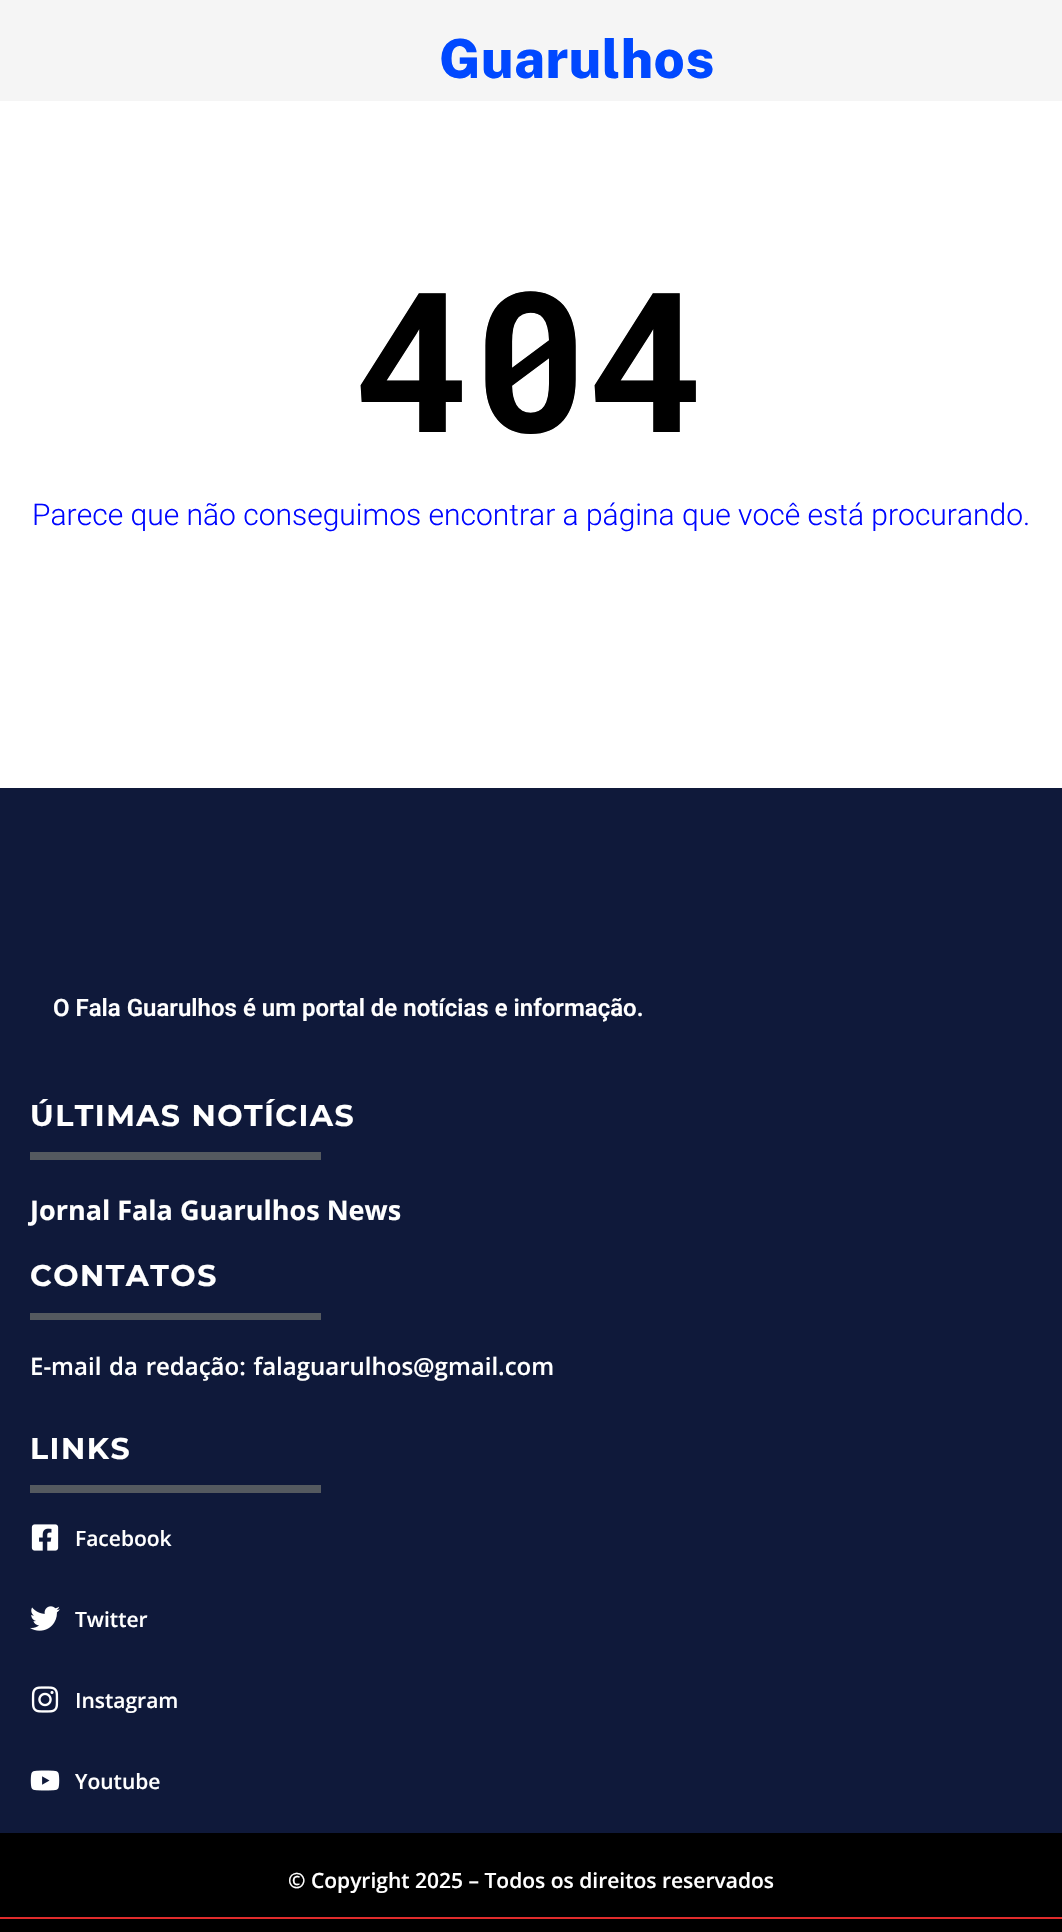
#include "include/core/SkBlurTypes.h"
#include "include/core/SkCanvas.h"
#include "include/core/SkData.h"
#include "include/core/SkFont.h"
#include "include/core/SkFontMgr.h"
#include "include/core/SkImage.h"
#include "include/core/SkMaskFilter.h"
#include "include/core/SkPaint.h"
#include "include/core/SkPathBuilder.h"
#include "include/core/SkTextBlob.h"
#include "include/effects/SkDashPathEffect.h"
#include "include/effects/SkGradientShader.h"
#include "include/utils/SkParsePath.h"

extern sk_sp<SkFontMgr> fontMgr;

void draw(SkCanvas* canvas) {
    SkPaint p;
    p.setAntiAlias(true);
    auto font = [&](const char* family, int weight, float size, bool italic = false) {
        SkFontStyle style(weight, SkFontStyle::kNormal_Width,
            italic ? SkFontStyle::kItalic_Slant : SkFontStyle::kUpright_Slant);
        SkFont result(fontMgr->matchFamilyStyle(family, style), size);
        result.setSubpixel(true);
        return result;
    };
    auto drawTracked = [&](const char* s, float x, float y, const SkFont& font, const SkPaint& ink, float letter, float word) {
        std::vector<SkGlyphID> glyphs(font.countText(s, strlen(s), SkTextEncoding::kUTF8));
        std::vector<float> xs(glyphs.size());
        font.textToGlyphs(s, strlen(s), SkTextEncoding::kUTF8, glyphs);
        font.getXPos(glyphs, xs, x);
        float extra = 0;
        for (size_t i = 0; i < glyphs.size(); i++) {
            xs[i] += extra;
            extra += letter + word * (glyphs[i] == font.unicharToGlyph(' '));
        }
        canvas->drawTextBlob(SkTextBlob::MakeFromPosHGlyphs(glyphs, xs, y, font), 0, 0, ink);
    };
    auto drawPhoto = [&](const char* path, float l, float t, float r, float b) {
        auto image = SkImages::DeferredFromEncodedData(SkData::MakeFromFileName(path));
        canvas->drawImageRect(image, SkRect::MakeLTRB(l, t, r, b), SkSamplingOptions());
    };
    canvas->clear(0xFFFFFFFF);
    p.setColor(0xFFF5F5F5);
    canvas->drawRect(SkRect::MakeLTRB(0, 0, 1062, 101), p);
    auto font1 = font("Public Sans", 800, 54);
    p.setColor(0xFF0048FF);
    drawTracked("Guarulhos", 439, 78, font1, p, 0.5f, 0);
    auto font2 = font("Roboto Mono", 700, 195);
    p.setColor(0xFF000000);
    canvas->drawString("404", 355, 432, font2, p);
    auto font3 = font("Roboto", 300, 30);
    p.setColor(0xFF0006FF);
    canvas->drawString("Parece que não conseguimos encontrar a página que você está procurando.", 32, 525, font3, p);
    p.setColor(0xFF0F193A);
    canvas->drawRect(SkRect::MakeLTRB(0, 788, 1062, 1833), p);
    auto font4 = font("Roboto", 600, 24);
    p.setColor(0xFFFFFFFF);
    canvas->drawString("O Fala Guarulhos é um portal de notícias e informação.", 53, 1016, font4, p);
    auto font5 = font("Montserrat", 700, 30);
    drawTracked("ÚLTIMAS NOTÍCIAS", 30, 1126, font5, p, 1.5f, 0);
    p.setColor(0xFF54595F);
    canvas->drawRect(SkRect::MakeLTRB(30, 1152, 321, 1160), p);
    auto font6 = font("Open Sans", 700, 27);
    p.setColor(0xFFFFFFFF);
    canvas->drawString("Jornal Fala Guarulhos News", 30, 1220, font6, p);
    drawTracked("CONTATOS", 30, 1286, font5, p, 1.5f, 0);
    p.setColor(0xFF54595F);
    canvas->drawRect(SkRect::MakeLTRB(30, 1313, 321, 1320), p);
    auto font7 = font("Open Sans", 600, 24);
    p.setColor(0xFFFFFFFF);
    drawTracked("E-mail da redação: falaguarulhos@gmail.com", 30, 1375, font7, p, 0, 1.5f);
    drawTracked("LINKS", 30, 1459, font5, p, 1.5f, 0);
    p.setColor(0xFF54595F);
    canvas->drawRect(SkRect::MakeLTRB(30, 1485, 321, 1493), p);
    drawPhoto("media/1.png", 31, 1524, 59, 1551);
    auto font8 = font("Open Sans", 600, 21);
    p.setColor(0xFFFFFFFF);
    canvas->drawString("Facebook", 75, 1546, font8, p);
    drawPhoto("media/2.png", 30, 1606, 60, 1631);
    canvas->drawString("Twitter", 75, 1627, font8, p);
    drawPhoto("media/3.png", 31, 1686, 59, 1713);
    canvas->drawString("Instagram", 75, 1708, font8, p);
    drawPhoto("media/4.png", 30, 1770, 60, 1791);
    canvas->drawString("Youtube", 75, 1789, font8, p);
    p.setColor(0xFF000000);
    canvas->drawRect(SkRect::MakeLTRB(0, 1833, 1062, 1932), p);
    p.setColor(0xFFFFFFFF);
    canvas->drawString("© Copyright 2025 – Todos os direitos reservados", 288, 1888, font8, p);
    p.setColor(0xFFDF2B2B);
    canvas->drawRect(SkRect::MakeLTRB(0, 1917, 1062, 1919), p);
}
